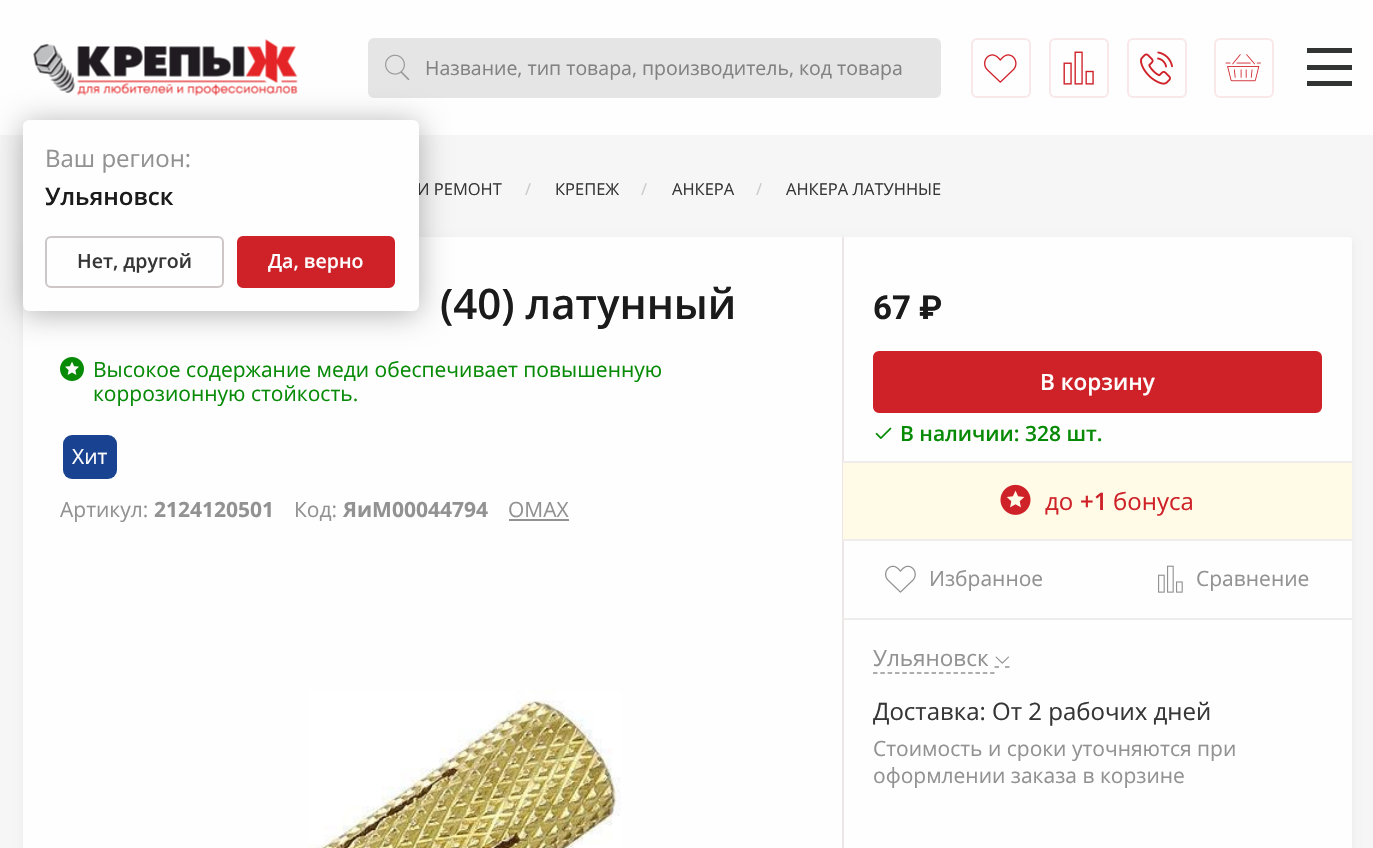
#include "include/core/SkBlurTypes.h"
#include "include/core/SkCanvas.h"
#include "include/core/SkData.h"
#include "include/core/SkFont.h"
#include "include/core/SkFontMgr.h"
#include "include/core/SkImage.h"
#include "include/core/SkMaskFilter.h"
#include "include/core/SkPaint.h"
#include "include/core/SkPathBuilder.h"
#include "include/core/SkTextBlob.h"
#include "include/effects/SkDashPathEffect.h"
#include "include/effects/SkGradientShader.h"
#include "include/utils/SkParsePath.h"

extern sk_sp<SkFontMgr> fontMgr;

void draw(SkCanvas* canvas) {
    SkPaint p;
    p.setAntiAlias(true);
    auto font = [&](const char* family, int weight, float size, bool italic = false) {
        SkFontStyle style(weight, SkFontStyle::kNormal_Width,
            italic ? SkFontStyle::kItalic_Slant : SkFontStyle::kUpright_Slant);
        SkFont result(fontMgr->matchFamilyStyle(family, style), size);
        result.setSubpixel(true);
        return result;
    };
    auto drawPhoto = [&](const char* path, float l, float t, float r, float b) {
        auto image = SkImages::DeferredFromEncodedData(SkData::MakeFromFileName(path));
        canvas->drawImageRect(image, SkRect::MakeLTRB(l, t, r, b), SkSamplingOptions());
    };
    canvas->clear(0xFFF6F6F6);
    p.setColor(0xFFFEFEFE);
    canvas->drawRect(SkRect::MakeLTRB(0, 0, 1373, 135), p);
    drawPhoto("media/1.png", 33, 39, 298, 96);
    p.setColor(0xFFE5E5E5);
    canvas->drawRoundRect(SkRect::MakeLTRB(368, 38, 941, 98), 6, 6, p);
    drawPhoto("media/2.png", 385, 54, 410, 81);
    auto font1 = font("Open Sans", 400, 19.5f);
    p.setColor(0xFF828282);
    canvas->drawString("Название, тип товара, производитель, код товара", 425, 75, font1, p);
    p.setStyle(SkPaint::kStroke_Style);
    p.setStrokeWidth(2);
    p.setColor(0xFFF9E8E9);
    canvas->drawRoundRect(SkRect::MakeLTRB(972, 39, 1030, 97), 5, 5, p);
    drawPhoto("media/3.png", 984, 54, 1017, 83);
    canvas->drawRoundRect(SkRect::MakeLTRB(1050, 39, 1108, 97), 5, 5, p);
    drawPhoto("media/4.png", 1063, 51, 1094, 85);
    canvas->drawRoundRect(SkRect::MakeLTRB(1128, 39, 1186, 97), 5, 5, p);
    drawPhoto("media/5.png", 1140, 51, 1173, 85);
    canvas->drawRoundRect(SkRect::MakeLTRB(1215, 39, 1273, 97), 5, 5, p);
    drawPhoto("media/6.png", 1225, 54, 1261, 82);
    p.setStyle(SkPaint::kFill_Style);
    {
        const struct { float l, t, r, b; SkColor color; } items[] = {
            {1307, 81, 1352, 86, 0xFF323333},
            {1307, 65, 1352, 70, 0xFF323333},
            {1307, 48, 1352, 53, 0xFF323333},
        };
        for (auto [l, t, r, b, color] : items) {
            p.setColor(color);
            canvas->drawRect(SkRect::MakeLTRB(l, t, r, b), p);
        }
    }
    auto font2 = font("Open Sans", 400, 16.5f);
    p.setColor(0xFF363636);
    canvas->drawString("И РЕМОНТ", 417, 195, font2, p);
    p.setColor(0xFFCACACA);
    canvas->drawString("/", 525, 195, font2, p);
    p.setColor(0xFF363636);
    canvas->drawString("КРЕПЕЖ", 555, 195, font2, p);
    p.setColor(0xFFCACACA);
    canvas->drawString("/", 641, 195, font2, p);
    p.setColor(0xFF363636);
    canvas->drawString("АНКЕРА", 672, 195, font2, p);
    p.setColor(0xFFCACACA);
    canvas->drawString("/", 756, 195, font2, p);
    p.setColor(0xFF363636);
    canvas->drawString("АНКЕРА ЛАТУННЫЕ", 786, 195, font2, p);
    p.setColor(0x0D000000);
    p.setMaskFilter(SkMaskFilter::MakeBlur(kNormal_SkBlurStyle, 4));
    canvas->drawRoundRect(SkRect::MakeLTRB(23, 240, 1352, 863), 3, 3, p);
    p.setMaskFilter(nullptr);
    p.setColor(0xFFFEFEFE);
    canvas->drawRoundRect(SkRect::MakeLTRB(23, 237, 1352, 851), 3, 3, p);
    auto font3 = font("Open Sans", 600, 42);
    p.setColor(0xFF1B1B1B);
    canvas->drawString("(40) латунный", 440, 319, font3, p);
    drawPhoto("media/7.png", 60, 357, 84, 381);
    auto font4 = font("Open Sans", 400, 21);
    p.setColor(0xFF078B07);
    canvas->drawString("Высокое содержание меди обеспечивает повышенную", 93, 377, font4, p);
    canvas->drawString("коррозионную стойкость.", 93, 401, font4, p);
    p.setColor(0xFF194390);
    canvas->drawRoundRect(SkRect::MakeLTRB(63, 435, 117, 479), 9, 9, p);
    p.setColor(0xFFFEFEFE);
    canvas->drawString("Хит", 72, 464, font4, p);
    p.setColor(0xFF929292);
    canvas->drawString("Артикул:", 60, 517, font4, p);
    auto font5 = font("Open Sans", 700, 21);
    canvas->drawString("2124120501", 154, 517, font5, p);
    canvas->drawString("Код:", 294, 517, font4, p);
    canvas->drawString("ЯиМ00044794", 343, 517, font5, p);
    canvas->drawString("OMAX", 508, 517, font4, p);
    canvas->drawRect(SkRect::MakeLTRB(509, 519, 569, 521), p);
    drawPhoto("media/8.png", 308, 691, 621, 848);
    p.setColor(0xFFECE6E6);
    canvas->drawRect(SkRect::MakeLTRB(842, 237, 844, 848), p);
    auto font6 = font("Roboto", 700, 33);
    p.setColor(0xFF1B1B1B);
    canvas->drawString("67 ₽", 873, 319, font6, p);
    p.setColor(0xFFCF2128);
    canvas->drawRoundRect(SkRect::MakeLTRB(874, 352, 1321, 412), 5, 5, p);
    p.setStyle(SkPaint::kStroke_Style);
    canvas->drawRoundRect(SkRect::MakeLTRB(874, 352, 1321, 412), 5, 5, p);
    auto font7 = font("Open Sans", 600, 22.5f);
    p.setStyle(SkPaint::kFill_Style);
    p.setColor(0xFFFEFEFE);
    canvas->drawString("В корзину", 1040, 390, font7, p);
    drawPhoto("media/9.png", 875, 427, 892, 439);
    auto font8 = font("Open Sans", 600, 21);
    p.setColor(0xFF078B07);
    canvas->drawString("В наличии: 328 шт.", 900, 441, font8, p);
    p.setColor(0xFFFFFBE7);
    canvas->drawRect(SkRect::MakeLTRB(843, 463, 1352, 539), p);
    p.setColor(0xFFEFECEC);
    canvas->drawRect(SkRect::MakeLTRB(843, 461, 1352, 463), p);
    drawPhoto("media/10.png", 1000, 484, 1031, 515);
    auto font9 = font("Open Sans", 400, 24);
    p.setColor(0xFFCF2128);
    canvas->drawString("до", 1045, 510, font9, p);
    auto font10 = font("Open Sans", 600, 24);
    canvas->drawString("+1", 1080, 510, font10, p);
    canvas->drawString("бонуса", 1113, 510, font9, p);
    p.setColor(0xFFEFECEC);
    canvas->drawRect(SkRect::MakeLTRB(843, 539, 1352, 541), p);
    canvas->drawRect(SkRect::MakeLTRB(843, 618, 1352, 620), p);
    drawPhoto("media/11.png", 885, 565, 916, 593);
    p.setColor(0xFF929292);
    canvas->drawString("Избранное", 929, 586, font4, p);
    drawPhoto("media/12.png", 1158, 565, 1183, 593);
    canvas->drawString("Сравнение", 1196, 586, font4, p);
    p.setStyle(SkPaint::kStroke_Style);
    p.setStrokeWidth(1.5f);
    p.setPathEffect(SkDashPathEffect::Make({{4.5f, 2.82f}}, 0));
    canvas->drawPath(SkPathBuilder().moveTo(873, 673).lineTo(994.5f, 673).detach(), p);
    p.setPathEffect(nullptr);
    canvas->drawPath(SkPathBuilder().moveTo(994.5f, 667).lineTo(999, 667).moveTo(1005, 667).lineTo(1009.5f, 667).detach(), p);
    auto font11 = font("Open Sans", 400, 22.5f);
    p.setStyle(SkPaint::kFill_Style);
    canvas->drawString("Ульяновск", 873, 666, font11, p);
    drawPhoto("media/13.png", 995, 656, 1009, 664);
    p.setColor(0xFF363636);
    canvas->drawString("Доставка: От 2 рабочих дней", 873, 720, font9, p);
    p.setColor(0xFF929292);
    canvas->drawString("Стоимость и сроки уточняются при", 873, 756, font4, p);
    canvas->drawString("оформлении заказа в корзине", 873, 783, font4, p);
    p.setColor(0x4D000000);
    p.setMaskFilter(SkMaskFilter::MakeBlur(kNormal_SkBlurStyle, 15));
    canvas->drawRoundRect(SkRect::MakeLTRB(23, 123, 419, 314), 6, 6, p);
    p.setMaskFilter(nullptr);
    p.setColor(0xFFFEFEFE);
    canvas->drawRoundRect(SkRect::MakeLTRB(23, 120, 419, 311), 6, 6, p);
    p.setColor(0xFF929292);
    canvas->drawString("Ваш регион:", 45, 167, font9, p);
    p.setColor(0xFF1B1B1B);
    canvas->drawString("Ульяновск", 45, 205, font10, p);
    p.setStyle(SkPaint::kStroke_Style);
    p.setStrokeWidth(2);
    p.setColor(0xFFCEC7C7);
    canvas->drawRoundRect(SkRect::MakeLTRB(46, 237, 223, 287), 5, 5, p);
    auto font12 = font("Open Sans", 600, 19.5f);
    p.setStyle(SkPaint::kFill_Style);
    p.setColor(0xFF363636);
    canvas->drawString("Нет, другой", 77, 268, font12, p);
    p.setColor(0xFFCF2128);
    canvas->drawRoundRect(SkRect::MakeLTRB(238, 237, 394, 287), 5, 5, p);
    p.setStyle(SkPaint::kStroke_Style);
    canvas->drawRoundRect(SkRect::MakeLTRB(238, 237, 394, 287), 5, 5, p);
    p.setStyle(SkPaint::kFill_Style);
    p.setColor(0xFFFEFEFE);
    canvas->drawString("Да, верно", 268, 268, font12, p);
}
